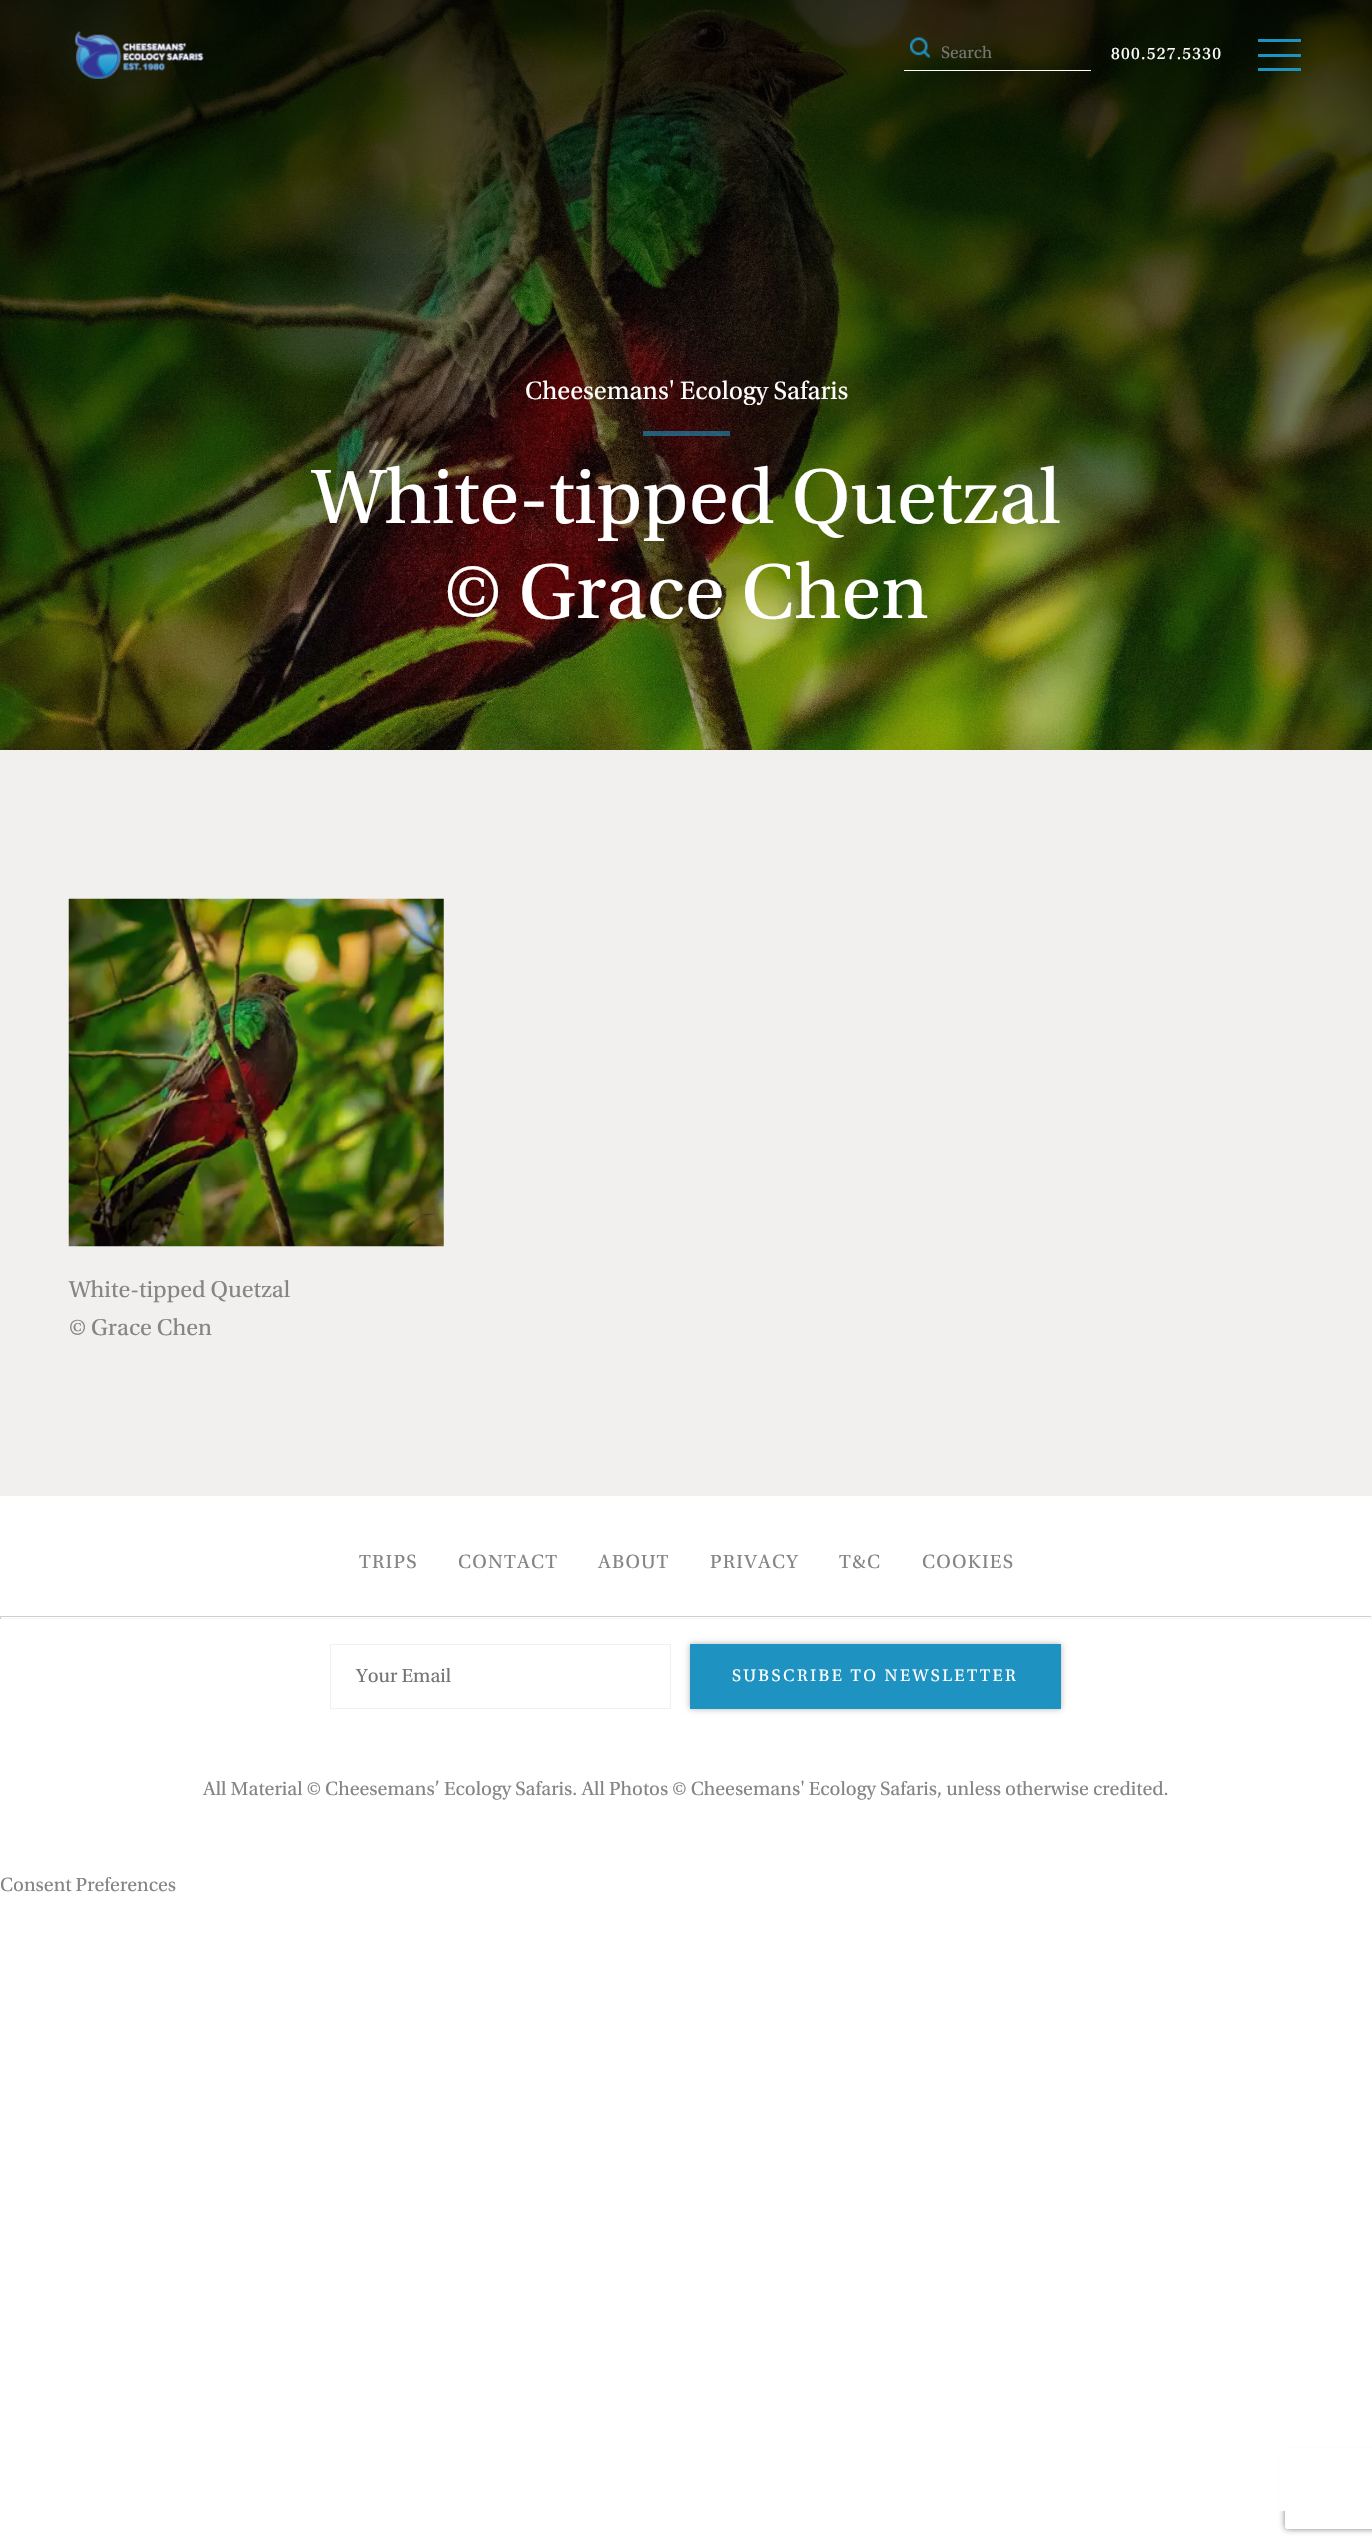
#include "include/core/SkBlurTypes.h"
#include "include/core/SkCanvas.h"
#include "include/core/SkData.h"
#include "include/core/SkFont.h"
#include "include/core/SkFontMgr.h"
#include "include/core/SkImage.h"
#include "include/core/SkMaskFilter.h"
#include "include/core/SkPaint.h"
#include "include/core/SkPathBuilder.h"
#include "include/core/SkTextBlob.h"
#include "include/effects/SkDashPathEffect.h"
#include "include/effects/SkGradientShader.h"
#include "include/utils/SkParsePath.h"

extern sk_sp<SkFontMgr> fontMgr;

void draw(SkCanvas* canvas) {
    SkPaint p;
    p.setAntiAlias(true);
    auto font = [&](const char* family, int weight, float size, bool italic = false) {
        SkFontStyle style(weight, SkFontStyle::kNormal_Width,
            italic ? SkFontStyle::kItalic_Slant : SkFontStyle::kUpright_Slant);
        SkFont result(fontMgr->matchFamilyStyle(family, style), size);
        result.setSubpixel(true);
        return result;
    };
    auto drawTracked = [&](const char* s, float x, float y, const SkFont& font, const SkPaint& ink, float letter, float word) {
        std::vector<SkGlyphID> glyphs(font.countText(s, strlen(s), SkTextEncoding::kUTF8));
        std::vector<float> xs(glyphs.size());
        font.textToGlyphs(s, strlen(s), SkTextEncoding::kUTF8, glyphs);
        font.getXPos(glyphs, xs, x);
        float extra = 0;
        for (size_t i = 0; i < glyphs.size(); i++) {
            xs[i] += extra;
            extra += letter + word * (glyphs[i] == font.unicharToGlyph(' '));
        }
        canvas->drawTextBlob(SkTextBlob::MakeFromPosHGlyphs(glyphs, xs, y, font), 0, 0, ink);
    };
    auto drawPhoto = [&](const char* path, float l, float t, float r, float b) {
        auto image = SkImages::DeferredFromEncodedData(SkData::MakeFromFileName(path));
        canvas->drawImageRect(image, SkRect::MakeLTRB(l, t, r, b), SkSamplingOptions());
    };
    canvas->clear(0xFFFFFFFF);
    drawPhoto("media/3.png", 0, 0, 1372, 750);
    drawPhoto("media/1.png", 74, 31, 204, 79);
    drawPhoto("media/2.png", 910, 37, 930, 58);
    p.setColor(0xFFFFFFFF);
    canvas->drawRect(SkRect::MakeLTRB(904, 70, 1091, 71), p);
    auto font1 = font("Utopia", 400, 17.5f);
    p.setColor(0xFF757575);
    canvas->drawString("Search", 941, 58, font1, p);
    p.setColor(0xFFFFFFFF);
    drawTracked("800.527.5330", 1111, 59, font1, p, 1.25f, 0);
    {
        const struct { float l, t, r, b; SkColor color; } items[] = {
            {1258, 39, 1301, 42, 0xFF1E93C1},
            {1258, 54, 1301, 57, 0xFF1E93C1},
            {1258, 68, 1301, 71, 0xFF1E93C1},
        };
        for (auto [l, t, r, b, color] : items) {
            p.setColor(color);
            canvas->drawRect(SkRect::MakeLTRB(l, t, r, b), p);
        }
    }
    auto font2 = font("Utopia", 400, 26.25f);
    p.setColor(0xFFFFFFFF);
    canvas->drawString("Cheesemans' Ecology Safaris", 525, 399, font2, p);
    p.setColor(0x991E93C1);
    canvas->drawRect(SkRect::MakeLTRB(643, 431, 730, 436), p);
    auto font3 = font("Utopia", 400, 81.25f);
    p.setColor(0xFFFFFFFF);
    canvas->drawString("White-tipped Quetzal", 312, 523, font3, p);
    canvas->drawString("© Grace Chen", 444, 618, font3, p);
    p.setColor(0xFFF1F0EE);
    canvas->drawRect(SkRect::MakeLTRB(0, 750, 1372, 1496), p);
    drawPhoto("media/4.png", 68, 898, 444, 1247);
    auto font4 = font("Utopia", 400, 24);
    p.setColor(0xFF858585);
    canvas->drawString("White-tipped Quetzal", 69, 1297, font4, p);
    canvas->drawString("© Grace Chen", 69, 1335, font4, p);
    canvas->save();
    canvas->clipPath(SkPathBuilder(SkPathFillType::kEvenOdd).moveTo(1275, 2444).lineTo(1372, 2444).lineTo(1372, 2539).lineTo(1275, 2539).close().moveTo(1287.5f, 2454).lineTo(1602.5f, 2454).cubicTo(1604, 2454, 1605, 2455, 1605, 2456.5f).lineTo(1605, 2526.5f).cubicTo(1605, 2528, 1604, 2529, 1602.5f, 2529).lineTo(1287.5f, 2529).cubicTo(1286, 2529, 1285, 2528, 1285, 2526.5f).lineTo(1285, 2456.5f).cubicTo(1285, 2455, 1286, 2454, 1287.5f, 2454).close().detach(), true);
    p.setColor(0xFF808080);
    p.setMaskFilter(SkMaskFilter::MakeBlur(kNormal_SkBlurStyle, 3));
    canvas->drawRoundRect(SkRect::MakeLTRB(1285, 2454, 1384, 2529), 2.5f, 2.5f, p);
    p.setMaskFilter(nullptr);
    canvas->restore();
    p.setColor(0xFFFFFFFF);
    canvas->drawRect(SkRect::MakeLTRB(1279, 2448, 1372, 2511), p);
    auto font5 = font("Utopia", 400, 20);
    p.setColor(0xFF858585);
    {
        const struct { const char* s; float x, y; } items[] = {
            {"TRIPS", 359, 1568},
            {"CONTACT", 458, 1568},
            {"ABOUT", 598, 1568},
            {"PRIVACY", 710, 1568},
            {"T&C", 839, 1568},
            {"COOKIES", 922, 1568},
        };
        for (auto [s, x, y] : items) {
            drawTracked(s, x, y, font5, p, 1.25f, 0);
        }
    }
    {
        const struct { float l, t, r, b; SkColor color; } items[] = {
            {0, 1616, 1372, 1617, 0xFFCFCFCF},
            {1371, 1616, 1372, 1619, 0xFFF7F7F7},
            {0, 1618, 1372, 1619, 0xFFF7F7F7},
            {0, 1616, 1, 1619, 0xFFCFCFCF},
        };
        for (auto [l, t, r, b, color] : items) {
            p.setColor(color);
            canvas->drawRect(SkRect::MakeLTRB(l, t, r, b), p);
        }
    }
    p.setStyle(SkPaint::kStroke_Style);
    p.setStrokeWidth(1);
    p.setColor(0xFFF1F0EE);
    canvas->drawRect(SkRect::MakeLTRB(330.5f, 1644.5f, 670.5f, 1708.5f), p);
    p.setStyle(SkPaint::kFill_Style);
    p.setColor(0xFF757575);
    canvas->drawString("Your Email", 356, 1682, font5, p);
    p.setColor(0x4D000000);
    p.setMaskFilter(SkMaskFilter::MakeBlur(kNormal_SkBlurStyle, 3));
    canvas->drawRect(SkRect::MakeLTRB(690, 1644, 1061, 1709), p);
    p.setMaskFilter(nullptr);
    p.setColor(0xFF1E93C1);
    canvas->drawRect(SkRect::MakeLTRB(690, 1644, 1061, 1709), p);
    p.setColor(0xFFFFFFFF);
    drawTracked("SUBSCRIBE TO NEWSLETTER", 732, 1681, font1, p, 2.5f, 0);
    p.setColor(0xFF858585);
    canvas->drawString("All Material © Cheesemans’ Ecology Safaris. All Photos © Cheesemans' Ecology Safaris, unless otherwise credited.", 203, 1795, font5, p);
    canvas->drawString("Consent Preferences", 0, 1891, font5, p);
}
